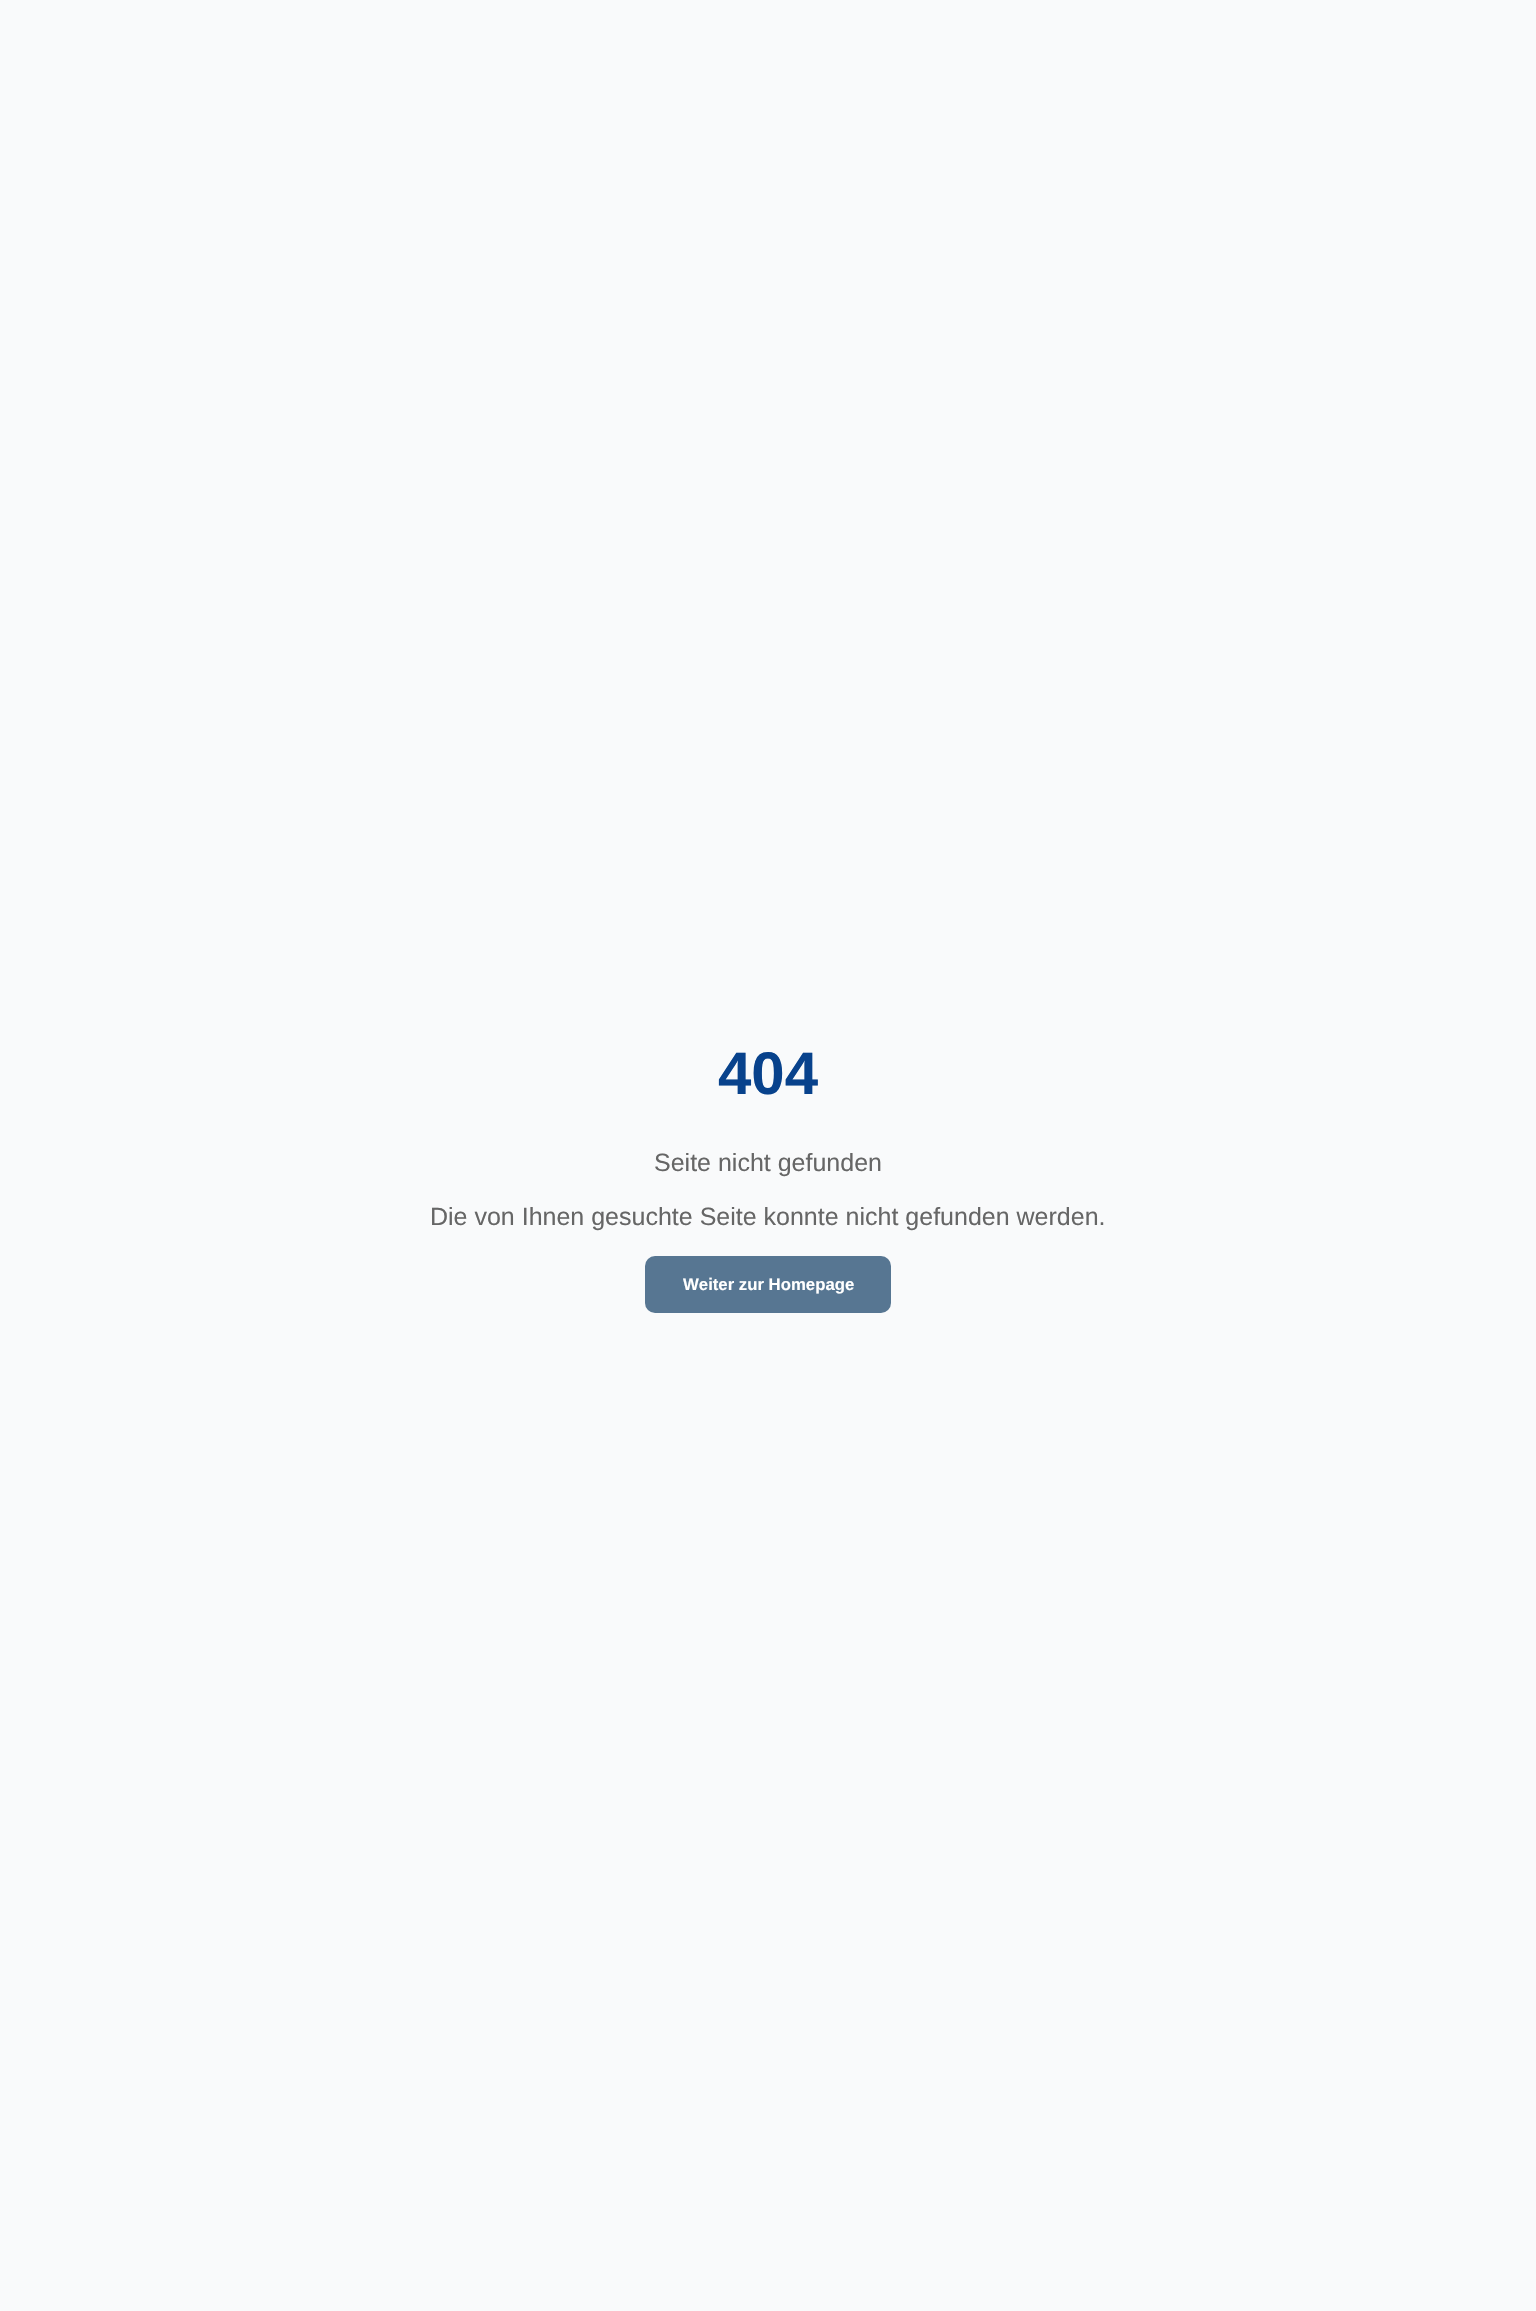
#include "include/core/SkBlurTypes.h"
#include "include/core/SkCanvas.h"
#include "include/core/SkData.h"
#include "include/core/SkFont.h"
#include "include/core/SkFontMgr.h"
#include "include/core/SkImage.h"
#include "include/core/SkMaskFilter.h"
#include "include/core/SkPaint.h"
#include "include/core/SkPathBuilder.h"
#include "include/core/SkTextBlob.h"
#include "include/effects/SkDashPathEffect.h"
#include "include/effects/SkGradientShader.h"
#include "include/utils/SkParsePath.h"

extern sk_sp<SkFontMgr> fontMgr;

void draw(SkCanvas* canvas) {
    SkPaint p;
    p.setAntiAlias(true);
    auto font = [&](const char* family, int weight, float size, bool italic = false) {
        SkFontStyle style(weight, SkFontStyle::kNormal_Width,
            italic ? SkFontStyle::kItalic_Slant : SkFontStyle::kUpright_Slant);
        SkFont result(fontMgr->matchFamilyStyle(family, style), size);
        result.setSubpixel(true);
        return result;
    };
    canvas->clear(0xFFF9FAFB);
    auto font1 = font("Liberation Sans", 700, 60);
    p.setColor(0xFF08428C);
    canvas->drawString("404", 718, 1094, font1, p);
    auto font2 = font("Liberation Sans", 400, 25);
    p.setColor(0xFF666666);
    canvas->drawString("Seite nicht gefunden", 654, 1171, font2, p);
    canvas->drawString("Die von Ihnen gesuchte Seite konnte nicht gefunden werden.", 430, 1225, font2, p);
    p.setColor(0xFF577692);
    canvas->drawRoundRect(SkRect::MakeLTRB(645, 1256, 891, 1313), 10, 10, p);
    auto font3 = font("Liberation Sans", 700, 16.75f);
    p.setColor(0xFFFFFFFF);
    canvas->drawString("Weiter zur Homepage", 683, 1290, font3, p);
}
